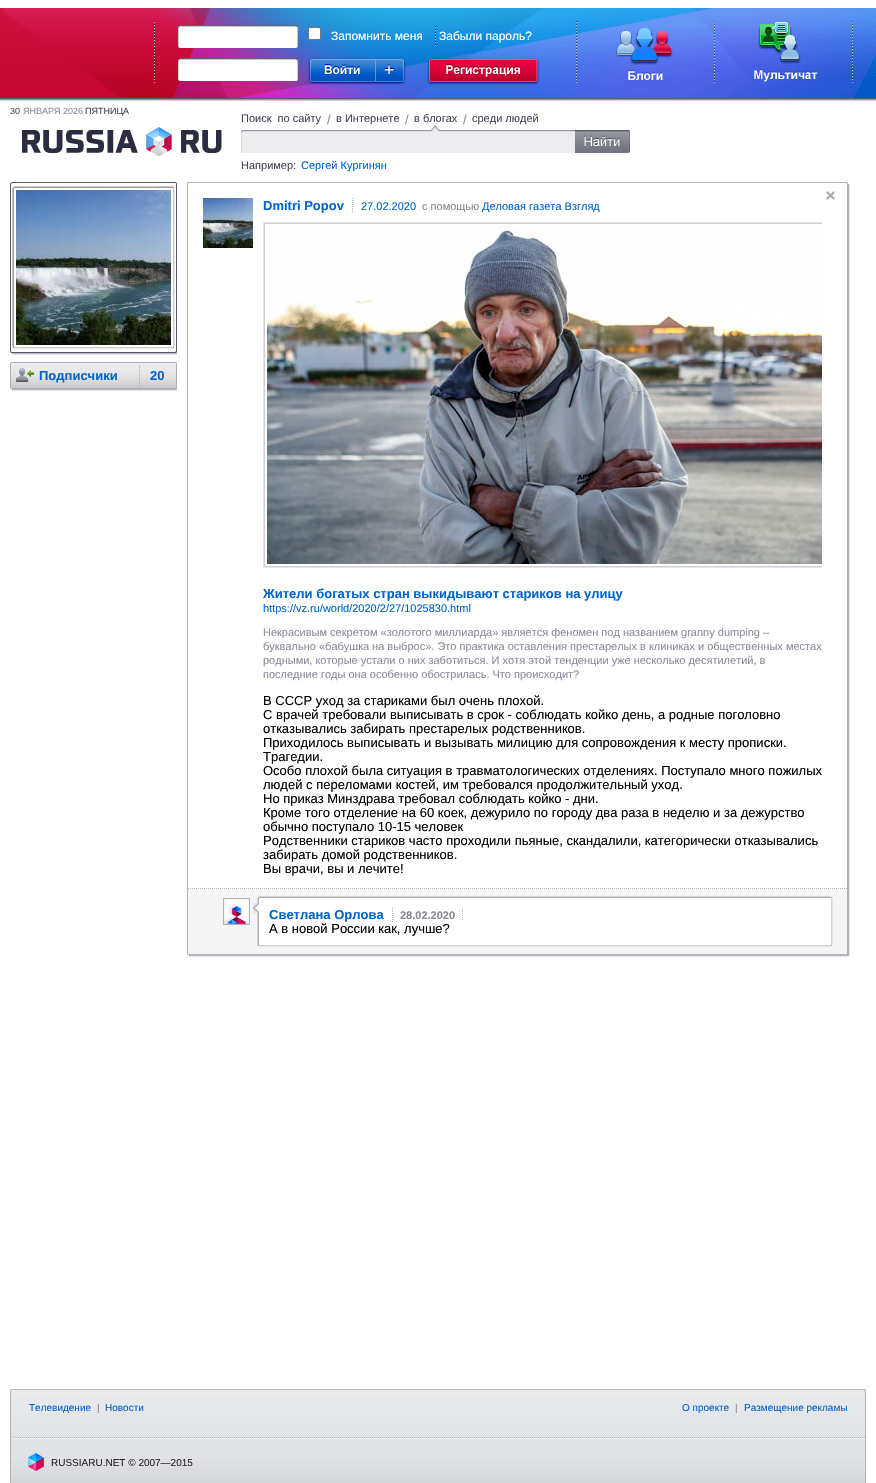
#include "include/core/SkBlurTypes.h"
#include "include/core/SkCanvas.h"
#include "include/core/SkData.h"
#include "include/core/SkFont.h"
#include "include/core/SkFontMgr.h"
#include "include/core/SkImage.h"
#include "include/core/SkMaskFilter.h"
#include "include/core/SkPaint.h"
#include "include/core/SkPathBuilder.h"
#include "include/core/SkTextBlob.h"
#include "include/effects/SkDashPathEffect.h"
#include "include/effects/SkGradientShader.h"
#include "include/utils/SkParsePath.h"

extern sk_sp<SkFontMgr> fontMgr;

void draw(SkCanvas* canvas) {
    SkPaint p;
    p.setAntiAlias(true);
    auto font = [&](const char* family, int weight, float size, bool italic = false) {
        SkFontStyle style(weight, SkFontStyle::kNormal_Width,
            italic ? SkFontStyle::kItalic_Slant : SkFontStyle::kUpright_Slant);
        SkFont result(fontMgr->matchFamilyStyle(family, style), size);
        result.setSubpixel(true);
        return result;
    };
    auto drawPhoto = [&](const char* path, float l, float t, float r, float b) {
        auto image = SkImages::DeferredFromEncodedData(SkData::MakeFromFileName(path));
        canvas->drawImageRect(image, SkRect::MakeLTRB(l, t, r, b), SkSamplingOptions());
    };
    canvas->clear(0xFFFFFFFF);
    drawPhoto("media/1.png", 0, 8, 4, 101);
    drawPhoto("media/2.png", 4, 8, 876, 101);
    p.setColor(0xFFFFFFFF);
    canvas->drawRoundRect(SkRect::MakeLTRB(308.5f, 27.5f, 320.5f, 39.5f), 1.5f, 1.5f, p);
    p.setStyle(SkPaint::kStroke_Style);
    p.setStrokeWidth(1);
    p.setColor(0xFF767676);
    canvas->drawRoundRect(SkRect::MakeLTRB(308.5f, 27.5f, 320.5f, 39.5f), 1.5f, 1.5f, p);
    auto font1 = font("Liberation Sans", 400, 12);
    p.setStyle(SkPaint::kFill_Style);
    p.setColor(0xFFFFFFFF);
    canvas->drawString("Запомнить меня", 331, 40, font1, p);
    canvas->drawString("Забыли пароль?", 439, 40, font1, p);
    drawPhoto("media/3.png", 308, 58, 406, 85);
    drawPhoto("media/4.png", 427, 58, 540, 85);
    drawPhoto("media/5.png", 616, 28, 673, 80);
    drawPhoto("media/6.png", 754, 22, 818, 82);
    auto font2 = font("Liberation Sans", 400, 9);
    p.setColor(0xFF434657);
    canvas->drawString("30", 10, 114, font2, p);
    p.setColor(0xFF8B8D9D);
    canvas->drawString("ЯНВАРЯ 2026", 23, 114, font2, p);
    p.setColor(0xFF434657);
    canvas->drawString("ПЯТНИЦА", 85, 114, font2, p);
    drawPhoto("media/7.png", 22, 127, 222, 156);
    auto font3 = font("Liberation Sans", 400, 11);
    canvas->drawString("Поиск  по сайту", 241, 122, font3, p);
    auto font4 = font("Liberation Sans", 400, 13);
    p.setColor(0xFF8B8D9D);
    canvas->drawString("/", 327, 124, font4, p);
    p.setColor(0xFF434657);
    canvas->drawString("в Интернете", 336, 122, font3, p);
    p.setColor(0xFF8B8D9D);
    canvas->drawString("/", 405, 124, font4, p);
    p.setColor(0xFF9697A1);
    canvas->drawRect(SkRect::MakeLTRB(241, 130, 575, 131), p);
    p.setColor(0xFFDCDCDF);
    canvas->drawRect(SkRect::MakeLTRB(241, 131, 575, 132), p);
    drawPhoto("media/8.png", 430, 125, 440, 132);
    p.setColor(0xFF434657);
    canvas->drawString("в блогах", 414, 122, font3, p);
    p.setColor(0xFF8B8D9D);
    canvas->drawString("/", 463, 124, font4, p);
    p.setColor(0xFF434657);
    canvas->drawString("среди людей", 472, 122, font3, p);
    p.setColor(0xFFDCDCDF);
    canvas->drawRect(SkRect::MakeLTRB(241, 131, 242, 153), p);
    drawPhoto("media/9.png", 241, 130, 243, 132);
    p.setColor(0xFFECECEE);
    canvas->drawRect(SkRect::MakeLTRB(242, 132, 575, 153), p);
    drawPhoto("media/10.png", 241, 152, 243, 153);
    drawPhoto("media/11.png", 575, 130, 630, 153);
    p.setColor(0xFF434657);
    canvas->drawString("Например:", 241, 169, font3, p);
    p.setColor(0xFF0066CC);
    canvas->drawString("Сергей Кургинян", 301, 169, font3, p);
    p.setStyle(SkPaint::kStroke_Style);
    p.setColor(0xFF575968);
    canvas->drawRect(SkRect::MakeLTRB(10.5f, 182.5f, 176.5f, 352.5f), p);
    drawPhoto("media/12.png", 10, 182, 12, 184);
    drawPhoto("media/13.png", 175, 182, 177, 184);
    p.setColor(0xFF999999);
    canvas->drawRect(SkRect::MakeLTRB(13.5f, 187.5f, 173.5f, 347.5f), p);
    p.setStyle(SkPaint::kFill_Style);
    p.setColor(0xFFCCCCCC);
    canvas->drawRect(SkRect::MakeLTRB(14, 186, 173, 187), p);
    canvas->drawRect(SkRect::MakeLTRB(12, 188, 13, 347), p);
    drawPhoto("media/14.png", 16, 190, 171, 345);
    {
        const struct { float l, t, r, b; SkColor color; } items[] = {
            {173, 188, 174, 347, 0xFFCCCCCC},
            {174, 188, 175, 347, 0xFFE5E6E8},
            {14, 347, 173, 348, 0xFFCCCCCC},
            {14, 348, 173, 349, 0xFFE5E6E8},
        };
        for (auto [l, t, r, b, color] : items) {
            p.setColor(color);
            canvas->drawRect(SkRect::MakeLTRB(l, t, r, b), p);
        }
    }
    drawPhoto("media/15.png", 10, 351, 12, 353);
    drawPhoto("media/16.png", 175, 351, 177, 353);
    p.setColor(0xFFB8B8C2);
    canvas->drawRect(SkRect::MakeLTRB(12, 353, 178, 354), p);
    p.setColor(0xFFE5E6E8);
    canvas->drawRect(SkRect::MakeLTRB(12, 354, 178, 355), p);
    p.setStyle(SkPaint::kStroke_Style);
    p.setColor(0xFFADAEB5);
    canvas->drawRect(SkRect::MakeLTRB(10.5f, 362.5f, 176.5f, 388.5f), p);
    drawPhoto("media/17.png", 10, 362, 12, 364);
    drawPhoto("media/18.png", 175, 362, 177, 364);
    drawPhoto("media/21.png", 10, 387, 12, 389);
    drawPhoto("media/22.png", 175, 387, 177, 389);
    drawPhoto("media/19.png", 11, 363, 176, 388);
    drawPhoto("media/20.png", 16, 368, 34, 382);
    auto font5 = font("Liberation Sans", 700, 13);
    p.setStyle(SkPaint::kFill_Style);
    p.setColor(0xFF0066CC);
    canvas->drawString("Подписчики", 39, 380, font5, p);
    p.setStyle(SkPaint::kStroke_Style);
    p.setColor(0xFFADAEB5);
    p.setPathEffect(SkDashPathEffect::Make({{1, 1}}, 0));
    canvas->drawPath(SkPathBuilder().moveTo(139.5f, 365).lineTo(139.5f, 386).detach(), p);
    p.setPathEffect(nullptr);
    p.setStyle(SkPaint::kFill_Style);
    p.setColor(0xFF0066CC);
    canvas->drawString("20", 150, 380, font5, p);
    {
        const struct { float l, t, r, b; SkColor color; } items[] = {
            {12, 389, 178, 390, 0xFFB8B8C2},
            {12, 390, 178, 391, 0xFFE5E6E8},
            {177, 353, 178, 391, 0xFFFFFFFF},
        };
        for (auto [l, t, r, b, color] : items) {
            p.setColor(color);
            canvas->drawRect(SkRect::MakeLTRB(l, t, r, b), p);
        }
    }
    p.setStyle(SkPaint::kStroke_Style);
    p.setColor(0xFFB1B2B9);
    canvas->drawRect(SkRect::MakeLTRB(187.5f, 182.5f, 847.5f, 954.5f), p);
    drawPhoto("media/23.png", 187, 182, 189, 184);
    drawPhoto("media/24.png", 846, 182, 848, 184);
    drawPhoto("media/25.png", 826, 191, 835, 200);
    canvas->save();
    canvas->clipRect(SkRect::MakeLTRB(263, 213, 822, 884));
    p.setColor(0xFFCECED3);
    canvas->drawRect(SkRect::MakeLTRB(264.5f, 223.5f, 869.5f, 566.5f), p);
    canvas->restore();
    p.setStyle(SkPaint::kFill_Style);
    p.setColor(0xFFB8B8C2);
    canvas->drawRect(SkRect::MakeLTRB(848, 184, 849, 956), p);
    p.setColor(0xFFE5E6E8);
    canvas->drawRect(SkRect::MakeLTRB(849, 184, 850, 956), p);
    drawPhoto("media/26.png", 203, 198, 253, 248);
    p.setColor(0xFF0066CC);
    canvas->drawString("Dmitri Popov", 263, 210, font5, p);
    p.setStyle(SkPaint::kStroke_Style);
    p.setColor(0xFFB2B4BB);
    p.setPathEffect(SkDashPathEffect::Make({{1, 1}}, 0));
    canvas->drawPath(SkPathBuilder().moveTo(352.5f, 198).lineTo(352.5f, 213).detach(), p);
    p.setPathEffect(nullptr);
    p.setStyle(SkPaint::kFill_Style);
    p.setColor(0xFF0066CC);
    canvas->drawString("27.02.2020", 361, 210, font3, p);
    p.setColor(0xFF878991);
    canvas->drawString("с помощью", 422, 210, font3, p);
    p.setColor(0xFF0066CC);
    canvas->drawString("Деловая газета Взгляд", 482, 210, font3, p);
    p.setColor(0xFFE7E7E9);
    canvas->drawRect(SkRect::MakeLTRB(263, 222, 822, 223), p);
    canvas->drawRect(SkRect::MakeLTRB(263, 223, 264, 567), p);
    drawPhoto("media/27.png", 267, 226, 822, 564);
    canvas->drawRect(SkRect::MakeLTRB(263, 567, 822, 568), p);
    p.setColor(0xFF0066CC);
    canvas->drawString("Жители богатых стран выкидывают стариков на улицу", 263, 598, font5, p);
    canvas->drawString("https://vz.ru/world/2020/2/27/1025830.html", 263, 612, font3, p);
    p.setColor(0xFF8B8D9D);
    {
        const struct { const char* s; float x, y; } items[] = {
            {"Некрасивым секретом «золотого миллиарда» является феномен под названием granny dumping –", 263, 636},
            {"буквально «бабушка на выброс». Это практика оставления престарелых в клиниках и общественных местах", 263, 650},
            {"родными, которые устали о них заботиться. И хотя этой тенденции уже несколько десятилетий, в", 263, 664},
            {"последние годы она особенно обострилась. Что происходит?", 263, 678},
        };
        for (auto [s, x, y] : items) {
            canvas->drawString(s, x, y, font3, p);
        }
    }
    p.setColor(0xFF000000);
    {
        const struct { const char* s; float x, y; } items[] = {
            {"В СССР уход за стариками был очень плохой.", 263, 705},
            {"С врачей требовали выписывать в срок - соблюдать койко день, а родные поголовно", 263, 719},
            {"отказывались забирать престарелых родственников.", 263, 733},
            {"Приходилось выписывать и вызывать милицию для сопровождения к месту прописки.", 263, 747},
            {"Трагедии.", 263, 761},
            {"Особо плохой была ситуация в травматологических отделенияx. Поступало много пожилых", 263, 775},
            {"людей с переломами костей, им требовался продолжительный уход.", 263, 789},
            {"Но приказ Минздрава требовал соблюдать койко - дни.", 263, 803},
            {"Кроме того отделение на 60 коек, дежурило по городу два раза в неделю и за дежурство", 263, 817},
            {"обычно поступало 10-15 человек", 263, 831},
            {"Родственники стариков часто проходили пьяные, скандалили, категорически отказывались", 263, 845},
            {"забирать домой родственников.", 263, 859},
            {"Вы врачи, вы и лечите!", 263, 873},
        };
        for (auto [s, x, y] : items) {
            canvas->drawString(s, x, y, font4, p);
        }
    }
    drawPhoto("media/31.png", 187, 953, 189, 955);
    drawPhoto("media/32.png", 846, 953, 848, 955);
    p.setColor(0xFFF5F5F5);
    canvas->drawRect(SkRect::MakeLTRB(188, 889, 847, 954), p);
    drawPhoto("media/28.png", 188, 888, 847, 889);
    p.setColor(0xFFFFFFFF);
    canvas->drawRect(SkRect::MakeLTRB(258.5f, 897.5f, 831.5f, 945.5f), p);
    p.setStyle(SkPaint::kStroke_Style);
    p.setColor(0xFFB1B2B9);
    canvas->drawRect(SkRect::MakeLTRB(258.5f, 897.5f, 831.5f, 945.5f), p);
    p.setStyle(SkPaint::kFill_Style);
    p.setColor(0xFFD2D3D7);
    canvas->drawRect(SkRect::MakeLTRB(259, 896, 831, 897), p);
    p.setStyle(SkPaint::kStroke_Style);
    p.setColor(0xFFB1B2B9);
    canvas->drawRect(SkRect::MakeLTRB(223.5f, 898.5f, 249.5f, 924.5f), p);
    drawPhoto("media/29.png", 224, 899, 249, 924);
    p.setStyle(SkPaint::kFill_Style);
    {
        const struct { float l, t, r, b; SkColor color; } items[] = {
            {257, 898, 258, 945, 0xFFD2D3D7},
            {831, 898, 832, 945, 0xFFD2D3D7},
            {832, 898, 833, 945, 0xFFE5E6E8},
        };
        for (auto [l, t, r, b, color] : items) {
            p.setColor(color);
            canvas->drawRect(SkRect::MakeLTRB(l, t, r, b), p);
        }
    }
    drawPhoto("media/30.png", 253, 903, 259, 913);
    p.setColor(0xFF0066CC);
    canvas->drawString("Светлана Орлова", 269, 919, font5, p);
    p.setStyle(SkPaint::kStroke_Style);
    p.setColor(0xFFB2B4BB);
    p.setPathEffect(SkDashPathEffect::Make({{1, 1}}, 0));
    canvas->drawPath(SkPathBuilder().moveTo(392.5f, 907).lineTo(392.5f, 922).detach(), p);
    p.setPathEffect(nullptr);
    auto font6 = font("Liberation Sans", 700, 11);
    p.setStyle(SkPaint::kFill_Style);
    p.setColor(0xFF878991);
    canvas->drawString("28.02.2020", 400, 919, font6, p);
    p.setStyle(SkPaint::kStroke_Style);
    p.setColor(0xFFB2B4BB);
    p.setPathEffect(SkDashPathEffect::Make({{1, 1}}, 0));
    canvas->drawPath(SkPathBuilder().moveTo(462.5f, 909).lineTo(462.5f, 921).detach(), p);
    p.setPathEffect(nullptr);
    p.setStyle(SkPaint::kFill_Style);
    p.setColor(0xFF000000);
    canvas->drawString("А в новой России как, лучше?", 269, 933, font4, p);
    {
        const struct { float l, t, r, b; SkColor color; } items[] = {
            {259, 945, 831, 946, 0xFFD2D3D7},
            {259, 946, 831, 947, 0xFFE5E6E8},
            {189, 955, 849, 956, 0xFFB8B8C2},
            {189, 956, 849, 957, 0xFFE5E6E8},
        };
        for (auto [l, t, r, b, color] : items) {
            p.setColor(color);
            canvas->drawRect(SkRect::MakeLTRB(l, t, r, b), p);
        }
    }
    drawPhoto("media/33.png", 11, 1393, 865, 1483);
    {
        const struct { float l, t, r, b; SkColor color; } items[] = {
            {10, 1389, 866, 1390, 0xFFB5B6B8},
            {865, 1389, 866, 1483, 0xFFB5B6B8},
            {10, 1389, 11, 1483, 0xFFB5B6B8},
            {11, 1390, 865, 1393, 0xFFECECEC},
        };
        for (auto [l, t, r, b, color] : items) {
            p.setColor(color);
            canvas->drawRect(SkRect::MakeLTRB(l, t, r, b), p);
        }
    }
    drawPhoto("media/34.png", 10, 1389, 12, 1391);
    drawPhoto("media/35.png", 864, 1389, 866, 1391);
    auto font7 = font("Liberation Sans", 400, 10);
    p.setColor(0xFF0066CC);
    canvas->drawString("Телевидение", 29, 1411, font7, p);
    p.setColor(0xFF898989);
    canvas->drawString("|", 97, 1411, font7, p);
    p.setColor(0xFF0066CC);
    canvas->drawString("Новости", 105, 1411, font7, p);
    canvas->drawString("О проекте", 682, 1411, font7, p);
    p.setColor(0xFF898989);
    canvas->drawString("|", 735, 1411, font7, p);
    p.setColor(0xFF0066CC);
    canvas->drawString("Размещение рекламы", 744, 1411, font7, p);
    drawPhoto("media/36.png", 28, 1453, 44, 1471);
    p.setColor(0xFF2E2929);
    canvas->drawString("RUSSIARU.NET © 2007—2015", 51, 1466, font7, p);
}
